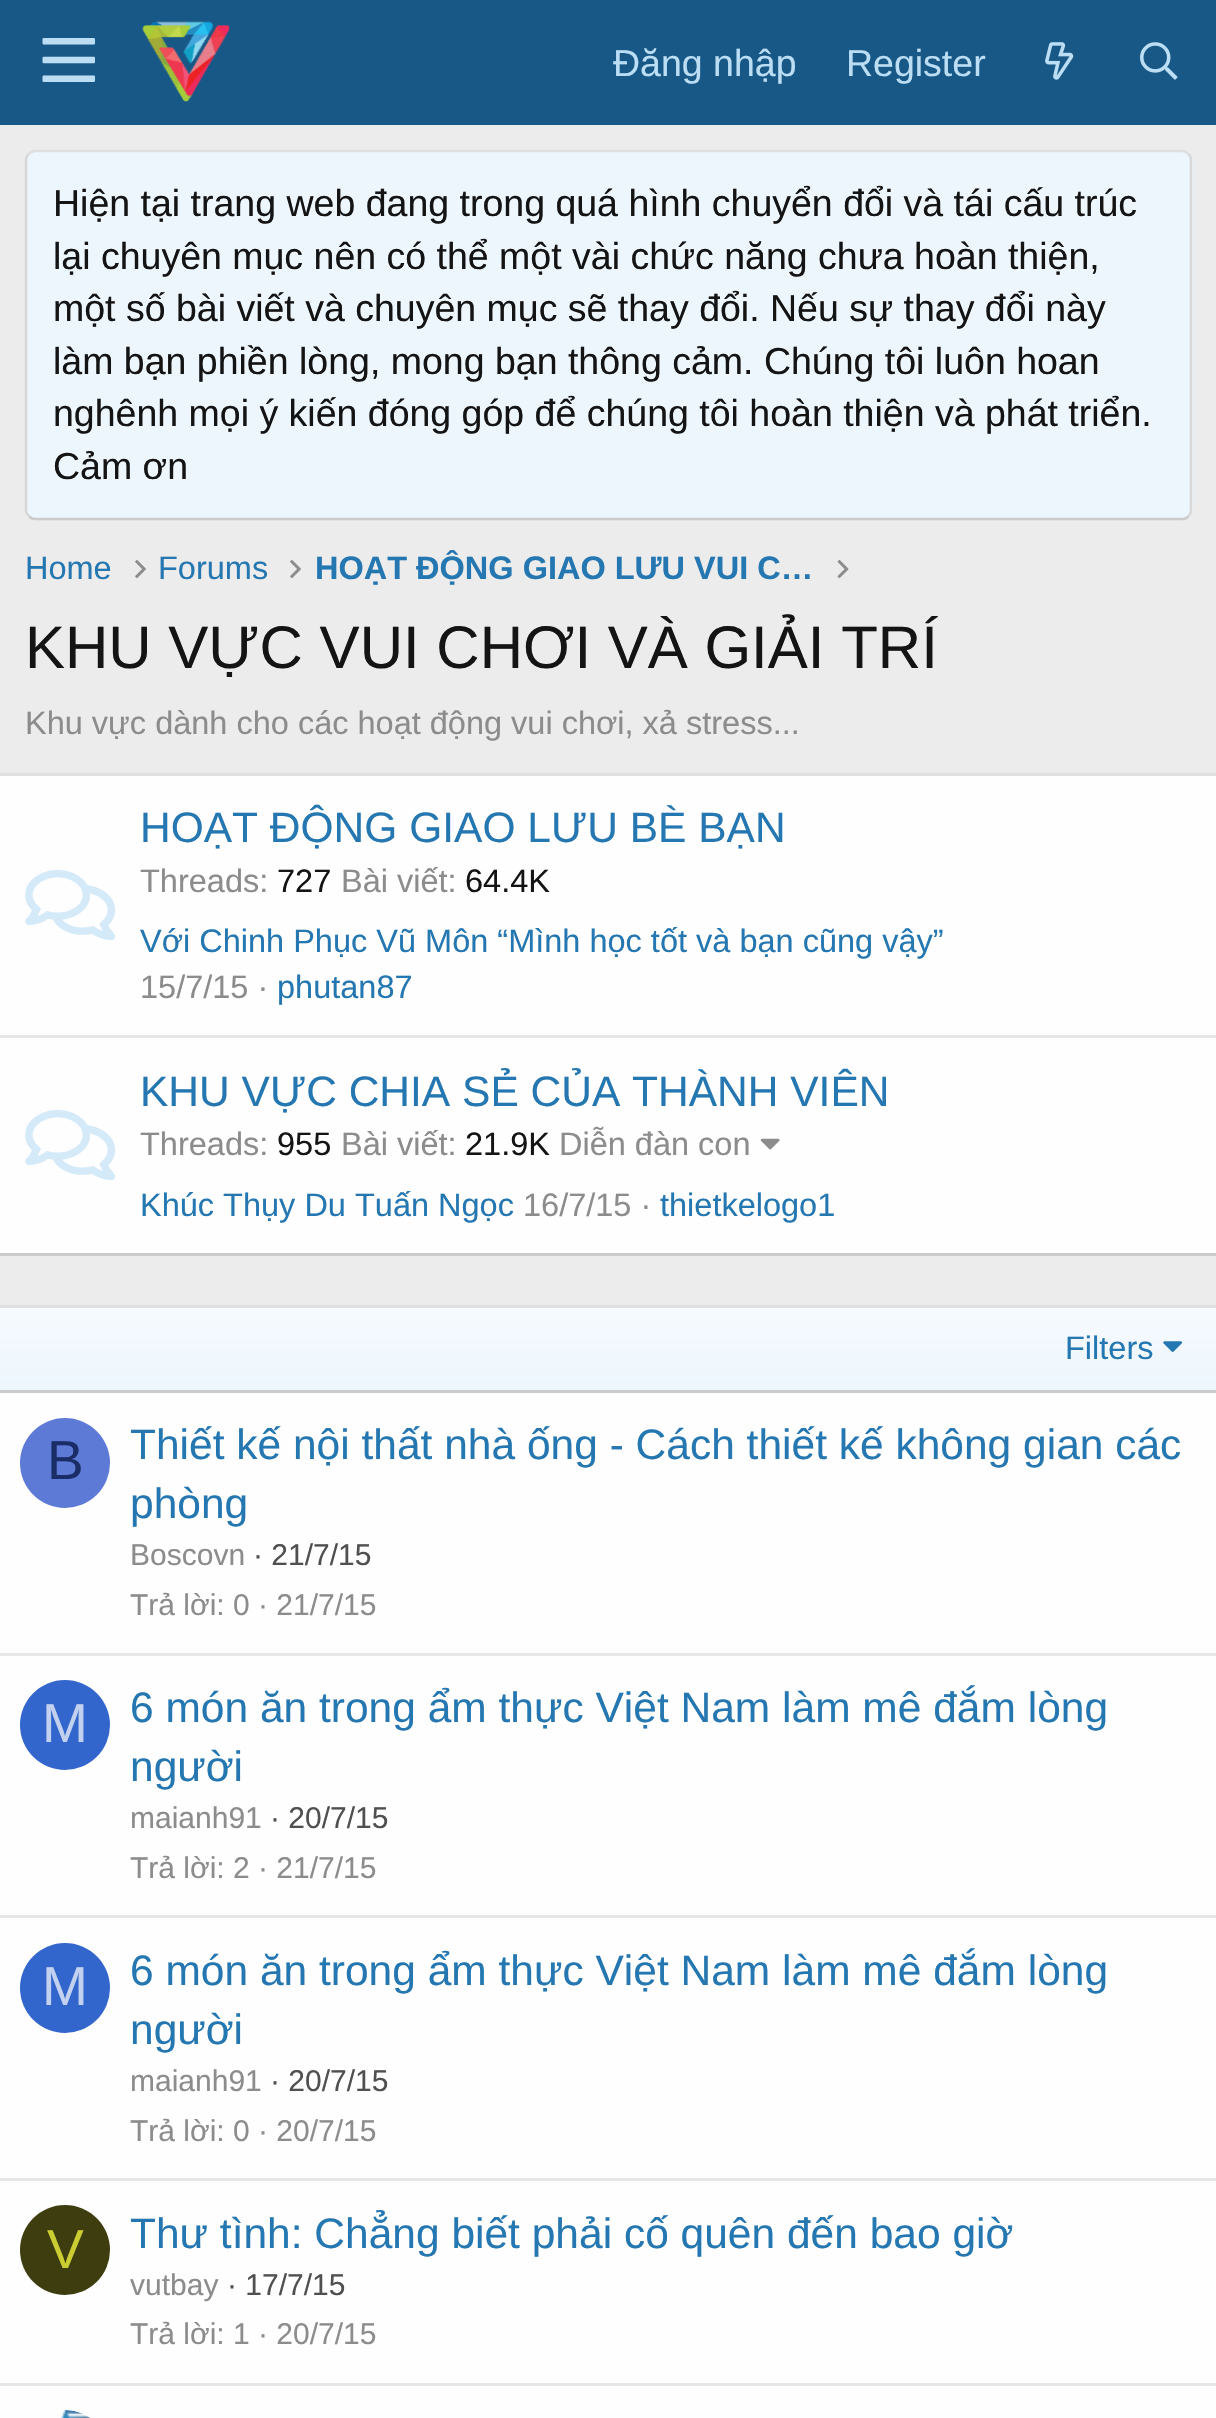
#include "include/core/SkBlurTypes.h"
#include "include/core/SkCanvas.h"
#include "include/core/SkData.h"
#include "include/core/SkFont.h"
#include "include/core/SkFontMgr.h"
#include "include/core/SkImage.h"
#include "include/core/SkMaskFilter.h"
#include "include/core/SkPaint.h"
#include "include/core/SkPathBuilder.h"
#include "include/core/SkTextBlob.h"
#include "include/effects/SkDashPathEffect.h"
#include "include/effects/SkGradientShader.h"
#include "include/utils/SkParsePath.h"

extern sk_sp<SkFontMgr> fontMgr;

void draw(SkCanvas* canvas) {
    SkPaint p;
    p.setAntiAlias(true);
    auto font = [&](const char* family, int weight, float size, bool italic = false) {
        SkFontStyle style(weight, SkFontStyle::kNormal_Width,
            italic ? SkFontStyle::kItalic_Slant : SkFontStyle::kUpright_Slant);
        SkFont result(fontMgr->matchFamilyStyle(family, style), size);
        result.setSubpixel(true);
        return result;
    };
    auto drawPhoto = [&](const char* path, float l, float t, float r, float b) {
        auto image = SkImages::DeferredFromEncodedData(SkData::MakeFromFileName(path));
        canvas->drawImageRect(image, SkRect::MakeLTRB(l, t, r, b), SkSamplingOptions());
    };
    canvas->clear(0xFFECECEC);
    p.setColor(0xFF185886);
    canvas->drawRect(SkRect::MakeLTRB(0, 0, 1216, 125), p);
    drawPhoto("media/1.png", 42, 38, 95, 82);
    drawPhoto("media/2.png", 142, 21, 230, 102);
    auto font1 = font("Liberation Sans", 400, 37.5f);
    p.setColor(0xFFBCDEF5);
    canvas->drawString("Đăng nhập", 613, 76, font1, p);
    canvas->drawString("Register", 846, 76, font1, p);
    drawPhoto("media/3.png", 1045, 42, 1074, 80);
    drawPhoto("media/4.png", 1140, 42, 1178, 80);
    p.setColor(0xFFEDF6FD);
    canvas->drawRoundRect(SkRect::MakeLTRB(25, 150, 1193, 520), 10, 10, p);
    p.setStyle(SkPaint::kStroke_Style);
    p.setStrokeWidth(2.5f);
    p.setColor(0xFFDFDFDF);
    canvas->drawPath(SkPathBuilder().moveTo(29, 154).cubicTo(30.5f, 152, 32.5f, 151, 35, 151).lineTo(1182.5f, 151).cubicTo(1185, 151, 1187, 152, 1188.5f, 154).detach(), p);
    p.setColor(0xFFD8D8D8);
    canvas->drawPath(SkPathBuilder().moveTo(1188.5f, 154).cubicTo(1190.5f, 155.5f, 1191, 157.5f, 1191, 160).lineTo(1191, 510).cubicTo(1191, 512.5f, 1190.5f, 514.5f, 1188.5f, 516).detach(), p);
    p.setColor(0xFFCBCBCB);
    canvas->drawPath(SkPathBuilder().moveTo(1188.5f, 516).cubicTo(1187, 518, 1185, 519, 1182.5f, 519).lineTo(35, 519).cubicTo(32.5f, 519, 30.5f, 518, 29, 516).detach(), p);
    p.setColor(0xFFD8D8D8);
    canvas->drawPath(SkPathBuilder().moveTo(29, 516).cubicTo(27, 514.5f, 26, 512.5f, 26, 510).lineTo(26, 160).cubicTo(26, 157.5f, 27, 155.5f, 29, 154).detach(), p);
    p.setStyle(SkPaint::kFill_Style);
    p.setColor(0xFF141414);
    {
        const struct { const char* s; float x, y; } items[] = {
            {"Hiện tại trang web đang trong quá hình chuyển đổi và tái cấu trúc", 53, 216},
            {"lại chuyên mục nên có thể một vài chức năng chưa hoàn thiện,", 53, 269},
            {"một số bài viết và chuyên mục sẽ thay đổi. Nếu sự thay đổi này", 53, 321},
            {"làm bạn phiền lòng, mong bạn thông cảm. Chúng tôi luôn hoan", 53, 374},
            {"nghênh mọi ý kiến đóng góp để chúng tôi hoàn thiện và phát triển.", 53, 426},
            {"Cảm ơn", 53, 479},
        };
        for (auto [s, x, y] : items) {
            canvas->drawString(s, x, y, font1, p);
        }
    }
    auto font2 = font("Liberation Sans", 400, 32.5f);
    p.setColor(0xFF2577B1);
    canvas->drawString("Home", 25, 579, font2, p);
    drawPhoto("media/5.png", 135, 560, 146, 579);
    canvas->drawString("Forums", 158, 579, font2, p);
    drawPhoto("media/5.png", 290, 560, 301, 579);
    auto font3 = font("Liberation Sans", 700, 32.5f);
    canvas->drawString("HOẠT ĐỘNG GIAO LƯU VUI C…", 315, 579, font3, p);
    drawPhoto("media/6.png", 837, 560, 849, 579);
    auto font4 = font("Liberation Sans", 400, 60);
    p.setColor(0xFF141414);
    canvas->drawString("KHU VỰC VUI CHƠI VÀ GIẢI TRÍ", 25, 668, font4, p);
    p.setColor(0xFF8C8C8C);
    canvas->drawString("Khu vực dành cho các hoạt động vui chơi, xả stress...", 25, 734, font2, p);
    {
        const struct { float l, t, r, b; SkColor color; } items[] = {
            {0, 776, 1216, 1253, 0xFFFEFEFE},
            {0, 773, 1216, 776, 0xFFDFDFDF},
            {0, 1253, 1216, 1256, 0xFFCBCBCB},
        };
        for (auto [l, t, r, b, color] : items) {
            p.setColor(color);
            canvas->drawRect(SkRect::MakeLTRB(l, t, r, b), p);
        }
    }
    auto font5 = font("Liberation Sans", 400, 42.5f);
    p.setColor(0xFF2577B1);
    canvas->drawString("HOẠT ĐỘNG GIAO LƯU BÈ BẠN", 140, 842, font5, p);
    p.setColor(0xFF8C8C8C);
    canvas->drawString("Threads:", 140, 892, font2, p);
    p.setColor(0xFF141414);
    canvas->drawString("727", 277, 892, font2, p);
    p.setColor(0xFF8C8C8C);
    canvas->drawString("Bài viết:", 341, 892, font2, p);
    p.setColor(0xFF141414);
    canvas->drawString("64.4K", 465, 892, font2, p);
    drawPhoto("media/7.png", 25, 870, 116, 940);
    p.setColor(0xFF2577B1);
    canvas->drawString("Với Chinh Phục Vũ Môn “Mình học tốt và bạn cũng vậy”", 140, 952, font2, p);
    p.setColor(0xFF8C8C8C);
    canvas->drawString("15/7/15 ·", 140, 998, font2, p);
    p.setColor(0xFF2577B1);
    canvas->drawString("phutan87", 277, 998, font2, p);
    p.setColor(0xFFE7E7E7);
    canvas->drawRect(SkRect::MakeLTRB(0, 1035, 1216, 1038), p);
    drawPhoto("media/7.png", 25, 1110, 116, 1180);
    p.setColor(0xFF2577B1);
    canvas->drawString("KHU VỰC CHIA SẺ CỦA THÀNH VIÊN", 140, 1106, font5, p);
    p.setColor(0xFF8C8C8C);
    canvas->drawString("Threads:", 140, 1155, font2, p);
    p.setColor(0xFF141414);
    canvas->drawString("955", 277, 1155, font2, p);
    p.setColor(0xFF8C8C8C);
    canvas->drawString("Bài viết:", 341, 1155, font2, p);
    p.setColor(0xFF141414);
    canvas->drawString("21.9K", 465, 1155, font2, p);
    p.setColor(0xFF8C8C8C);
    canvas->drawString("Diễn đàn con", 559, 1155, font2, p);
    drawPhoto("media/8.png", 760, 1138, 780, 1150);
    p.setColor(0xFF2577B1);
    canvas->drawString("Khúc Thụy Du Tuấn Ngọc", 140, 1216, font2, p);
    p.setColor(0xFF8C8C8C);
    canvas->drawString("16/7/15 ·", 523, 1216, font2, p);
    p.setColor(0xFF2577B1);
    canvas->drawString("thietkelogo1", 660, 1216, font2, p);
    p.setColor(0xFFFEFEFE);
    canvas->drawRect(SkRect::MakeLTRB(0, 1393, 1216, 2418), p);
    p.setColor(0xFFDFDFDF);
    canvas->drawRect(SkRect::MakeLTRB(0, 1305, 1216, 1308), p);
    {
        const SkColor colors[] = {0xFFEDF6FD, 0xFFF6FAFE};
        const float stops[] = {0, 1};
        const SkPoint ends[] = {{609, 1390}, {609, 1308}};
        p.setShader(SkGradientShader::MakeLinear(ends, colors, stops, 2, SkTileMode::kClamp));
        p.setAlpha(255);
    }
    canvas->drawRect(SkRect::MakeLTRB(0, 1308, 1216, 1390), p);
    p.setShader(nullptr);
    p.setColor(0xFFCBCBCB);
    canvas->drawRect(SkRect::MakeLTRB(0, 1390, 1216, 1393), p);
    p.setColor(0xFF2577B1);
    canvas->drawString("Filters", 1065, 1359, font2, p);
    drawPhoto("media/9.png", 1163, 1341, 1183, 1352);
    p.setColor(0xFF5C7AD6);
    canvas->drawCircle(65, 1463, 45, p);
    auto font6 = font("Liberation Sans", 400, 55);
    p.setColor(0xFF1A2D66);
    canvas->drawString("B", 47, 1479, font6, p);
    p.setColor(0xFF2577B1);
    canvas->drawString("Thiết kế nội thất nhà ống - Cách thiết kế không gian các", 130, 1459, font5, p);
    canvas->drawString("phòng", 130, 1518, font5, p);
    auto font7 = font("Liberation Sans", 400, 30);
    p.setColor(0xFF8C8C8C);
    canvas->drawString("Boscovn", 130, 1565, font7, p);
    p.setColor(0xFF505050);
    canvas->drawString("· 21/7/15", 253, 1565, font7, p);
    p.setColor(0xFF8C8C8C);
    canvas->drawString("Trả lời: 0", 130, 1615, font7, p);
    canvas->drawString("· 21/7/15", 258, 1615, font7, p);
    p.setColor(0xFFE7E7E7);
    canvas->drawRect(SkRect::MakeLTRB(0, 1653, 1216, 1656), p);
    p.setColor(0xFF3366CC);
    canvas->drawCircle(65, 1725, 45, p);
    p.setColor(0xFFC2D1F0);
    canvas->drawString("M", 42, 1742, font6, p);
    p.setColor(0xFF2577B1);
    canvas->drawString("6 món ăn trong ẩm thực Việt Nam làm mê đắm lòng", 130, 1722, font5, p);
    canvas->drawString("người", 130, 1781, font5, p);
    p.setColor(0xFF8C8C8C);
    canvas->drawString("maianh91", 130, 1828, font7, p);
    p.setColor(0xFF505050);
    canvas->drawString("· 20/7/15", 270, 1828, font7, p);
    p.setColor(0xFF8C8C8C);
    canvas->drawString("Trả lời: 2", 130, 1878, font7, p);
    canvas->drawString("· 21/7/15", 258, 1878, font7, p);
    p.setColor(0xFFE7E7E7);
    canvas->drawRect(SkRect::MakeLTRB(0, 1915, 1216, 1918), p);
    p.setColor(0xFF3366CC);
    canvas->drawCircle(65, 1988, 45, p);
    p.setColor(0xFFC2D1F0);
    canvas->drawString("M", 42, 2005, font6, p);
    p.setColor(0xFF2577B1);
    canvas->drawString("6 món ăn trong ẩm thực Việt Nam làm mê đắm lòng", 130, 1985, font5, p);
    canvas->drawString("người", 130, 2044, font5, p);
    p.setColor(0xFF8C8C8C);
    canvas->drawString("maianh91", 130, 2091, font7, p);
    p.setColor(0xFF505050);
    canvas->drawString("· 20/7/15", 270, 2091, font7, p);
    p.setColor(0xFF8C8C8C);
    canvas->drawString("Trả lời: 0", 130, 2141, font7, p);
    canvas->drawString("· 20/7/15", 258, 2141, font7, p);
    p.setColor(0xFFE7E7E7);
    canvas->drawRect(SkRect::MakeLTRB(0, 2178, 1216, 2181), p);
    p.setColor(0xFF3D3D0F);
    canvas->drawCircle(65, 2250, 45, p);
    p.setColor(0xFFCCCC33);
    canvas->drawString("V", 47, 2268, font6, p);
    p.setColor(0xFF2577B1);
    canvas->drawString("Thư tình: Chẳng biết phải cố quên đến bao giờ", 130, 2248, font5, p);
    p.setColor(0xFF8C8C8C);
    canvas->drawString("vutbay", 130, 2295, font7, p);
    p.setColor(0xFF505050);
    canvas->drawString("· 17/7/15", 227, 2295, font7, p);
    p.setColor(0xFF8C8C8C);
    canvas->drawString("Trả lời: 1", 130, 2344, font7, p);
    canvas->drawString("· 20/7/15", 258, 2344, font7, p);
    p.setColor(0xFFE7E7E7);
    canvas->drawRect(SkRect::MakeLTRB(0, 2383, 1216, 2386), p);
    drawPhoto("media/10.png", 60, 2410, 90, 2418);
}
